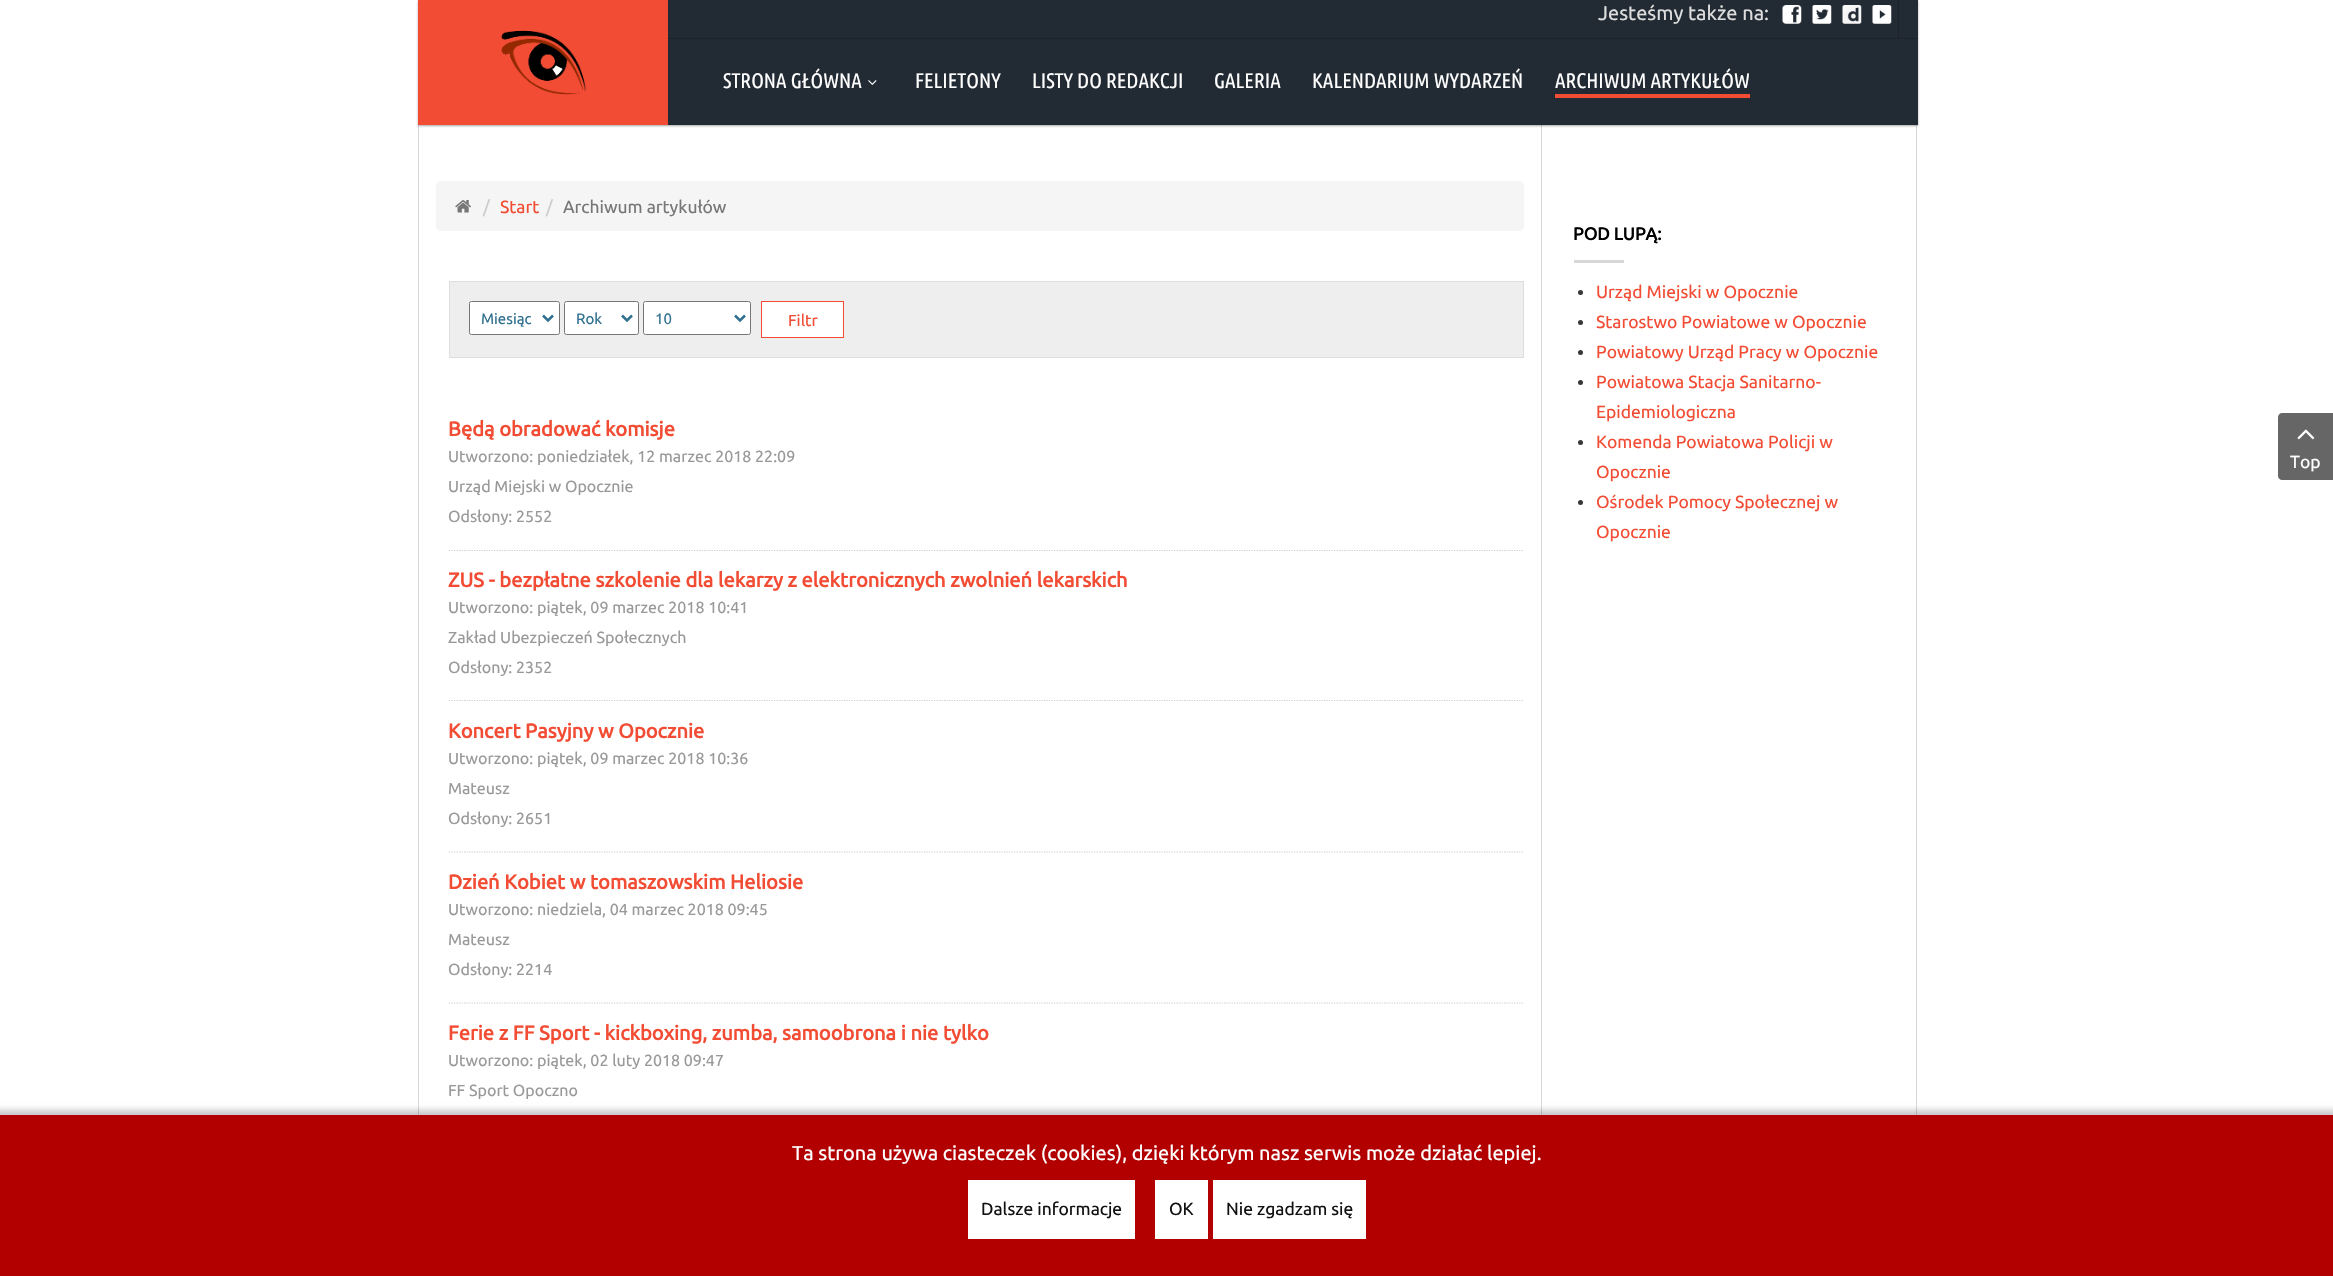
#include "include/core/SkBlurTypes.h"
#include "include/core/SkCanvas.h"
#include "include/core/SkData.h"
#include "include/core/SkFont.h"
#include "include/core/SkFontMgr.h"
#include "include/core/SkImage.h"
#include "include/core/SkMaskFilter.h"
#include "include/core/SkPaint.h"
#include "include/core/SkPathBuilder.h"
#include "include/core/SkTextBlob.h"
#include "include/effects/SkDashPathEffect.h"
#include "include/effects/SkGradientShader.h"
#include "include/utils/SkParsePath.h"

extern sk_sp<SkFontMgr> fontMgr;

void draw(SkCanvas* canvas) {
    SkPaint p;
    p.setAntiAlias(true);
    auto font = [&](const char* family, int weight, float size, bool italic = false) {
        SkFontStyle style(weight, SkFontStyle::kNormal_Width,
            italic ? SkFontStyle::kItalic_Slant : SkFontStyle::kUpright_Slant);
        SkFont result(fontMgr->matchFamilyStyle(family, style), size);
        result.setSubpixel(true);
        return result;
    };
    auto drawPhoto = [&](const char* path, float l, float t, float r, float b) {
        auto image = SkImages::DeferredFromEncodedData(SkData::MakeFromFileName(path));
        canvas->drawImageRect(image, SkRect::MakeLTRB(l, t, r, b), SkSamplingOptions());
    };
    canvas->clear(0xFFFFFFFF);
    {
        const struct { float l, t, r, b; SkColor color; } items[] = {
            {418, 125, 419, 1115, 0xFFD7D7D7},
            {1541, 125, 1542, 1115, 0xFFD7D7D7},
            {1916, 125, 1917, 1115, 0xFFD7D7D7},
        };
        for (auto [l, t, r, b, color] : items) {
            p.setColor(color);
            canvas->drawRect(SkRect::MakeLTRB(l, t, r, b), p);
        }
    }
    p.setColor(0x57000000);
    p.setMaskFilter(SkMaskFilter::MakeBlur(kNormal_SkBlurStyle, 1));
    canvas->drawRect(SkRect::MakeLTRB(418, 1, 1918, 126), p);
    p.setMaskFilter(nullptr);
    p.setColor(0xFF222A33);
    canvas->drawRect(SkRect::MakeLTRB(668, 0, 1918, 125), p);
    p.setColor(0xFFF24D34);
    canvas->drawRect(SkRect::MakeLTRB(418, 0, 668, 125), p);
    drawPhoto("media/1.png", 501, 30, 586, 95);
    p.setColor(0xFF1B2229);
    canvas->drawRect(SkRect::MakeLTRB(1898, 0, 1899, 38), p);
    auto font1 = font("Ubuntu", 400, 20);
    p.setColor(0xFFDDDDDD);
    canvas->drawString("Jesteśmy także na:", 1598, 20, font1, p);
    drawPhoto("media/2.png", 1782, 5, 1802, 24);
    drawPhoto("media/3.png", 1812, 5, 1832, 24);
    drawPhoto("media/4.png", 1842, 5, 1862, 24);
    drawPhoto("media/5.png", 1872, 5, 1892, 24);
    p.setColor(0xFF1B2229);
    canvas->drawRect(SkRect::MakeLTRB(668, 38, 1918, 39), p);
    auto font2 = font("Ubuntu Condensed", 400, 21);
    p.setColor(0xFFFFFFFF);
    canvas->drawString("STRONA GŁÓWNA", 723, 88, font2, p);
    drawPhoto("media/6.png", 868, 80, 877, 85);
    {
        const struct { const char* s; float x, y; } items[] = {
            {"FELIETONY", 915, 88},
            {"LISTY DO REDAKCJI", 1032, 88},
            {"GALERIA", 1214, 88},
            {"KALENDARIUM WYDARZEŃ", 1312, 88},
            {"ARCHIWUM ARTYKUŁÓW", 1555, 88},
        };
        for (auto [s, x, y] : items) {
            canvas->drawString(s, x, y, font2, p);
        }
    }
    p.setColor(0xFFF24D34);
    canvas->drawRect(SkRect::MakeLTRB(1555, 94, 1750, 98), p);
    p.setColor(0xFFF5F5F5);
    canvas->drawRoundRect(SkRect::MakeLTRB(436, 181, 1524, 231), 5, 5, p);
    drawPhoto("media/7.png", 455, 200, 471, 213);
    auto font3 = font("Ubuntu", 400, 17.5f);
    p.setColor(0xFFCCCCCC);
    canvas->drawString("/", 483, 213, font3, p);
    p.setColor(0xFFF24D34);
    canvas->drawString("Start", 500, 213, font3, p);
    p.setColor(0xFFCCCCCC);
    canvas->drawString("/", 546, 213, font3, p);
    p.setColor(0xFF777777);
    canvas->drawString("Archiwum artykułów", 563, 213, font3, p);
    p.setColor(0xFFEEEEEE);
    canvas->drawRect(SkRect::MakeLTRB(449.5f, 281.5f, 1523.5f, 357.5f), p);
    p.setStyle(SkPaint::kStroke_Style);
    p.setStrokeWidth(1);
    p.setColor(0xFFDDDDDD);
    canvas->drawRect(SkRect::MakeLTRB(449.5f, 281.5f, 1523.5f, 357.5f), p);
    p.setStyle(SkPaint::kFill_Style);
    p.setColor(0xFFFFFFFF);
    canvas->drawRoundRect(SkRect::MakeLTRB(469.5f, 301.5f, 559.5f, 334.5f), 2, 2, p);
    p.setStyle(SkPaint::kStroke_Style);
    p.setColor(0xFF767676);
    canvas->drawRoundRect(SkRect::MakeLTRB(469.5f, 301.5f, 559.5f, 334.5f), 2, 2, p);
    p.setStrokeWidth(2.5f);
    p.setColor(0xFF31708F);
    canvas->drawPath(SkPathBuilder().moveTo(543, 315.5f).lineTo(548, 320.5f).lineTo(553, 315.5f).detach(), p);
    auto font4 = font("Ubuntu", 400, 15);
    p.setStyle(SkPaint::kFill_Style);
    canvas->drawString("Miesiąc", 481, 324, font4, p);
    p.setColor(0xFFFFFFFF);
    canvas->drawRoundRect(SkRect::MakeLTRB(564.5f, 301.5f, 638.5f, 334.5f), 2, 2, p);
    p.setStyle(SkPaint::kStroke_Style);
    p.setStrokeWidth(1);
    p.setColor(0xFF767676);
    canvas->drawRoundRect(SkRect::MakeLTRB(564.5f, 301.5f, 638.5f, 334.5f), 2, 2, p);
    p.setStrokeWidth(2.5f);
    p.setColor(0xFF31708F);
    canvas->drawPath(SkPathBuilder().moveTo(622, 315.5f).lineTo(627, 320.5f).lineTo(632, 315.5f).detach(), p);
    p.setStyle(SkPaint::kFill_Style);
    canvas->drawString("Rok", 576, 324, font4, p);
    p.setColor(0xFFFFFFFF);
    canvas->drawRoundRect(SkRect::MakeLTRB(643.5f, 301.5f, 750.5f, 334.5f), 2, 2, p);
    p.setStyle(SkPaint::kStroke_Style);
    p.setStrokeWidth(1);
    p.setColor(0xFF767676);
    canvas->drawRoundRect(SkRect::MakeLTRB(643.5f, 301.5f, 750.5f, 334.5f), 2, 2, p);
    p.setStrokeWidth(2.5f);
    p.setColor(0xFF31708F);
    canvas->drawPath(SkPathBuilder().moveTo(735, 315.5f).lineTo(740, 320.5f).lineTo(745, 315.5f).detach(), p);
    p.setStyle(SkPaint::kFill_Style);
    canvas->drawString("10", 655, 324, font4, p);
    p.setColor(0xFFFFFFFF);
    canvas->drawRect(SkRect::MakeLTRB(761.5f, 301.5f, 843.5f, 337.5f), p);
    p.setStyle(SkPaint::kStroke_Style);
    p.setStrokeWidth(1);
    p.setColor(0xFFF24D34);
    canvas->drawRect(SkRect::MakeLTRB(761.5f, 301.5f, 843.5f, 337.5f), p);
    auto font5 = font("Ubuntu", 400, 16);
    p.setStyle(SkPaint::kFill_Style);
    canvas->drawString("Filtr", 788, 326, font5, p);
    auto font6 = font("Ubuntu", 700, 20.1f);
    canvas->drawString("Będą obradować komisje", 448, 436, font6, p);
    auto font7 = font("Ubuntu", 400, 16.05f);
    p.setColor(0xFF999999);
    {
        const struct { const char* s; float x, y; } items[] = {
            {"Utworzono: poniedziałek, 12 marzec 2018 22:09", 448, 462},
            {"Urząd Miejski w Opocznie", 448, 492},
            {"Odsłony: 2552", 448, 522},
        };
        for (auto [s, x, y] : items) {
            canvas->drawString(s, x, y, font7, p);
        }
    }
    p.setStyle(SkPaint::kStroke_Style);
    p.setStrokeWidth(1.2f);
    p.setColor(0xFFCCCCCC);
    p.setPathEffect(SkDashPathEffect::Make({{1.25f, 1.25f}}, 0));
    canvas->drawPath(SkPathBuilder().moveTo(449, 550.5f).lineTo(1524, 550.5f).detach(), p);
    p.setPathEffect(nullptr);
    p.setStyle(SkPaint::kFill_Style);
    p.setColor(0xFFF24D34);
    canvas->drawString("ZUS - bezpłatne szkolenie dla lekarzy z elektronicznych zwolnień lekarskich", 448, 587, font6, p);
    p.setColor(0xFF999999);
    {
        const struct { const char* s; float x, y; } items[] = {
            {"Utworzono: piątek, 09 marzec 2018 10:41", 448, 613},
            {"Zakład Ubezpieczeń Społecznych", 448, 643},
            {"Odsłony: 2352", 448, 673},
        };
        for (auto [s, x, y] : items) {
            canvas->drawString(s, x, y, font7, p);
        }
    }
    p.setStyle(SkPaint::kStroke_Style);
    p.setColor(0xFFCCCCCC);
    p.setPathEffect(SkDashPathEffect::Make({{1.25f, 1.25f}}, 0));
    canvas->drawPath(SkPathBuilder().moveTo(449, 700.5f).lineTo(1524, 700.5f).detach(), p);
    p.setPathEffect(nullptr);
    p.setStyle(SkPaint::kFill_Style);
    p.setColor(0xFFF24D34);
    canvas->drawString("Koncert Pasyjny w Opocznie", 448, 738, font6, p);
    p.setColor(0xFF999999);
    {
        const struct { const char* s; float x, y; } items[] = {
            {"Utworzono: piątek, 09 marzec 2018 10:36", 448, 764},
            {"Mateusz", 448, 794},
            {"Odsłony: 2651", 448, 824},
        };
        for (auto [s, x, y] : items) {
            canvas->drawString(s, x, y, font7, p);
        }
    }
    p.setStyle(SkPaint::kStroke_Style);
    p.setColor(0xFFCCCCCC);
    p.setPathEffect(SkDashPathEffect::Make({{1.25f, 1.25f}}, 0));
    canvas->drawPath(SkPathBuilder().moveTo(449, 852).lineTo(1524, 852).detach(), p);
    p.setPathEffect(nullptr);
    p.setStyle(SkPaint::kFill_Style);
    p.setColor(0xFFF24D34);
    canvas->drawString("Dzień Kobiet w tomaszowskim Heliosie", 448, 889, font6, p);
    p.setColor(0xFF999999);
    {
        const struct { const char* s; float x, y; } items[] = {
            {"Utworzono: niedziela, 04 marzec 2018 09:45", 448, 915},
            {"Mateusz", 448, 945},
            {"Odsłony: 2214", 448, 975},
        };
        for (auto [s, x, y] : items) {
            canvas->drawString(s, x, y, font7, p);
        }
    }
    p.setStyle(SkPaint::kStroke_Style);
    p.setColor(0xFFCCCCCC);
    p.setPathEffect(SkDashPathEffect::Make({{1.25f, 1.25f}}, 0));
    canvas->drawPath(SkPathBuilder().moveTo(449, 1003).lineTo(1524, 1003).detach(), p);
    p.setPathEffect(nullptr);
    p.setStyle(SkPaint::kFill_Style);
    p.setColor(0xFFF24D34);
    canvas->drawString("Ferie z FF Sport - kickboxing, zumba, samoobrona i nie tylko", 448, 1040, font6, p);
    p.setColor(0xFF999999);
    canvas->drawString("Utworzono: piątek, 02 luty 2018 09:47", 448, 1066, font7, p);
    canvas->drawString("FF Sport Opoczno", 448, 1096, font7, p);
    auto font8 = font("Ubuntu", 700, 17.5f);
    p.setColor(0xFF000000);
    canvas->drawString("POD LUPĄ:", 1573, 240, font8, p);
    p.setColor(0xFFD7D7D7);
    canvas->drawRect(SkRect::MakeLTRB(1574, 260, 1624, 263), p);
    p.setColor(0xFF383838);
    canvas->drawCircle(1580.5f, 292.5f, 2.5f, p);
    p.setColor(0xFFF24D34);
    canvas->drawString("Urząd Miejski w Opocznie", 1596, 298, font3, p);
    p.setColor(0xFF383838);
    canvas->drawCircle(1580.5f, 322.5f, 2.5f, p);
    p.setColor(0xFFF24D34);
    canvas->drawString("Starostwo Powiatowe w Opocznie", 1596, 328, font3, p);
    p.setColor(0xFF383838);
    canvas->drawCircle(1580.5f, 352.5f, 2.5f, p);
    p.setColor(0xFFF24D34);
    canvas->drawString("Powiatowy Urząd Pracy w Opocznie", 1596, 358, font3, p);
    p.setColor(0xFF383838);
    canvas->drawCircle(1580.5f, 382.5f, 2.5f, p);
    p.setColor(0xFFF24D34);
    canvas->drawString("Powiatowa Stacja Sanitarno-", 1596, 388, font3, p);
    canvas->drawString("Epidemiologiczna", 1596, 418, font3, p);
    p.setColor(0xFF383838);
    canvas->drawCircle(1580.5f, 442.5f, 2.5f, p);
    p.setColor(0xFFF24D34);
    canvas->drawString("Komenda Powiatowa Policji w", 1596, 448, font3, p);
    canvas->drawString("Opocznie", 1596, 478, font3, p);
    p.setColor(0xFF383838);
    canvas->drawCircle(1580.5f, 502.5f, 2.5f, p);
    p.setColor(0xFFF24D34);
    canvas->drawString("Ośrodek Pomocy Społecznej w", 1596, 508, font3, p);
    canvas->drawString("Opocznie", 1596, 538, font3, p);
    p.setColor(0xFF666666);
    canvas->drawPath(SkPathBuilder().moveTo(2282, 413).lineTo(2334, 413).lineTo(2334, 480).lineTo(2282, 480).cubicTo(2280, 480, 2278, 478, 2278, 476).lineTo(2278, 417).cubicTo(2278, 415, 2280, 413, 2282, 413).close().detach(), p);
    drawPhoto("media/8.png", 2297, 429, 2315, 440);
    p.setColor(0xFFFFFFFF);
    canvas->drawString("Top", 2290, 468, font3, p);
    p.setColor(0x36000000);
    p.setMaskFilter(SkMaskFilter::MakeBlur(kNormal_SkBlurStyle, 3));
    canvas->drawRect(SkRect::MakeLTRB(-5, 1110, 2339, 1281), p);
    p.setMaskFilter(nullptr);
    p.setColor(0xFFB20000);
    canvas->drawRect(SkRect::MakeLTRB(0, 1115, 2333, 1276), p);
    p.setColor(0xFFFFFFFF);
    canvas->drawString("Ta strona używa ciasteczek (cookies), dzięki którym nasz serwis może działać lepiej.", 792, 1160, font1, p);
    canvas->drawRect(SkRect::MakeLTRB(968, 1180, 1135, 1239), p);
    p.setColor(0xFF111111);
    canvas->drawString("Dalsze informacje", 981, 1215, font3, p);
    p.setColor(0xFFFFFFFF);
    canvas->drawRect(SkRect::MakeLTRB(1155, 1180, 1208, 1239), p);
    p.setColor(0xFF111111);
    canvas->drawString("OK", 1169, 1215, font3, p);
    p.setColor(0xFFFFFFFF);
    canvas->drawRect(SkRect::MakeLTRB(1213, 1180, 1366, 1239), p);
    p.setColor(0xFF111111);
    canvas->drawString("Nie zgadzam się", 1226, 1215, font3, p);
}
